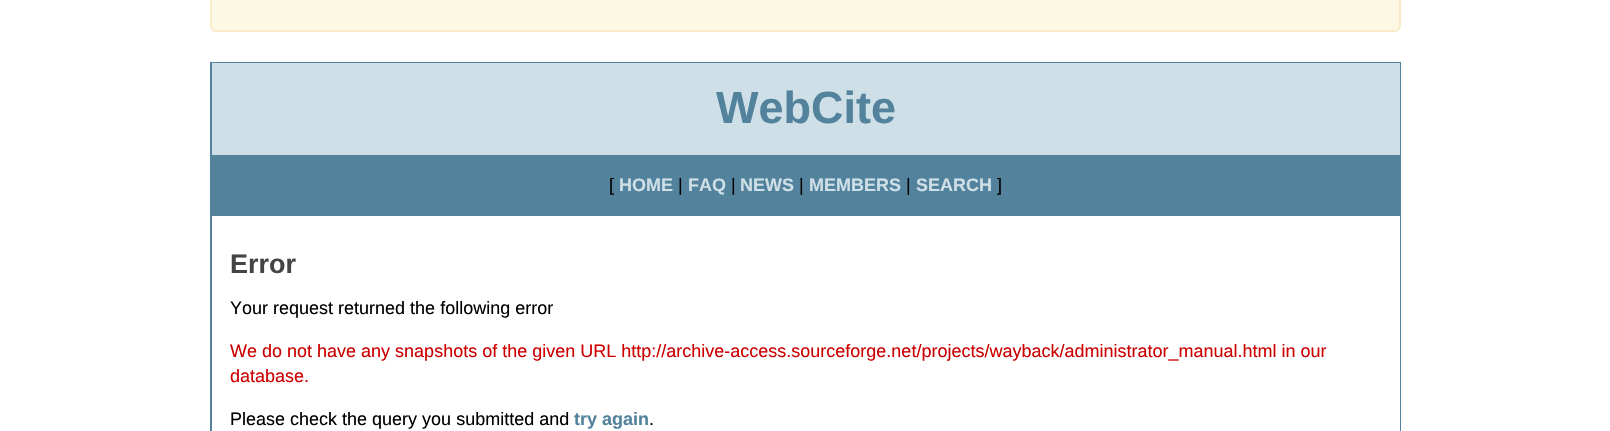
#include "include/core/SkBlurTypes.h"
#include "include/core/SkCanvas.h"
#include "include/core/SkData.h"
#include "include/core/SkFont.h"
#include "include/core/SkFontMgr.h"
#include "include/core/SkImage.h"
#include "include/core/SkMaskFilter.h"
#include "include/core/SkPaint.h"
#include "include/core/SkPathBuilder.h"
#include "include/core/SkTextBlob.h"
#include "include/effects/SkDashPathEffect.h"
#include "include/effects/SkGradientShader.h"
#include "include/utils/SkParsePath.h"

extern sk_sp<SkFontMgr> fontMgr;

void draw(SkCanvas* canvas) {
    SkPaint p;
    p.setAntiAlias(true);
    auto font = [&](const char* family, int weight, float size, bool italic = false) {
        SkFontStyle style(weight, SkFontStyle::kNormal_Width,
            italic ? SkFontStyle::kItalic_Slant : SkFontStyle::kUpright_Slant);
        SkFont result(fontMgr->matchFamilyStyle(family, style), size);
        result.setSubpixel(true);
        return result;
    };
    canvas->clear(0xFFFFFFFF);
    p.setColor(0xFFFCF8E3);
    canvas->drawRoundRect(SkRect::MakeLTRB(211, -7, 1400, 31), 5, 5, p);
    p.setStyle(SkPaint::kStroke_Style);
    p.setStrokeWidth(2);
    p.setColor(0xFFFAEBCC);
    canvas->drawRoundRect(SkRect::MakeLTRB(211, -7, 1400, 31), 5, 5, p);
    p.setColor(0xFF52829C);
    canvas->drawRect(SkRect::MakeLTRB(211, 63, 1400, 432), p);
    p.setStyle(SkPaint::kFill_Style);
    p.setColor(0xFFCEDFE7);
    canvas->drawRect(SkRect::MakeLTRB(212, 63, 1400, 155), p);
    auto font1 = font("Liberation Sans", 700, 45);
    p.setColor(0xFF52829C);
    canvas->drawString("WebCite", 716, 123, font1, p);
    canvas->drawRect(SkRect::MakeLTRB(212, 155, 1399, 216), p);
    auto font2 = font("Liberation Sans", 400, 18);
    p.setColor(0xFF000000);
    canvas->drawString("[", 609, 191, font2, p);
    auto font3 = font("Liberation Sans", 700, 18);
    p.setColor(0xFFCEDFE7);
    canvas->drawString("HOME", 619, 191, font3, p);
    p.setColor(0xFF000000);
    canvas->drawString("|", 678, 191, font2, p);
    p.setColor(0xFFCEDFE7);
    canvas->drawString("FAQ", 688, 191, font3, p);
    p.setColor(0xFF000000);
    canvas->drawString("|", 731, 191, font2, p);
    p.setColor(0xFFCEDFE7);
    canvas->drawString("NEWS", 740, 191, font3, p);
    p.setColor(0xFF000000);
    canvas->drawString("|", 799, 191, font2, p);
    p.setColor(0xFFCEDFE7);
    canvas->drawString("MEMBERS", 809, 191, font3, p);
    p.setColor(0xFF000000);
    canvas->drawString("|", 906, 191, font2, p);
    p.setColor(0xFFCEDFE7);
    canvas->drawString("SEARCH", 916, 191, font3, p);
    p.setColor(0xFF000000);
    canvas->drawString("]", 997, 191, font2, p);
    p.setColor(0xFFFFFFFF);
    canvas->drawRect(SkRect::MakeLTRB(1399, 216, 1400, 431), p);
    auto font4 = font("Liberation Sans", 700, 27);
    p.setColor(0xFF444444);
    canvas->drawString("Error", 230, 273, font4, p);
    p.setColor(0xFF000000);
    canvas->drawString("Your request returned the following error", 230, 314, font2, p);
    p.setColor(0xFFCC0000);
    canvas->drawString("We do not have any snapshots of the given URL http://archive-access.sourceforge.net/projects/wayback/administrator_manual.html in our", 230, 357, font2, p);
    canvas->drawString("database.", 230, 382, font2, p);
    p.setColor(0xFF000000);
    canvas->drawString("Please check the query you submitted and", 230, 425, font2, p);
    p.setColor(0xFF52829C);
    canvas->drawString("try again", 574, 425, font3, p);
    p.setColor(0xFF000000);
    canvas->drawString(".", 649, 425, font2, p);
}
